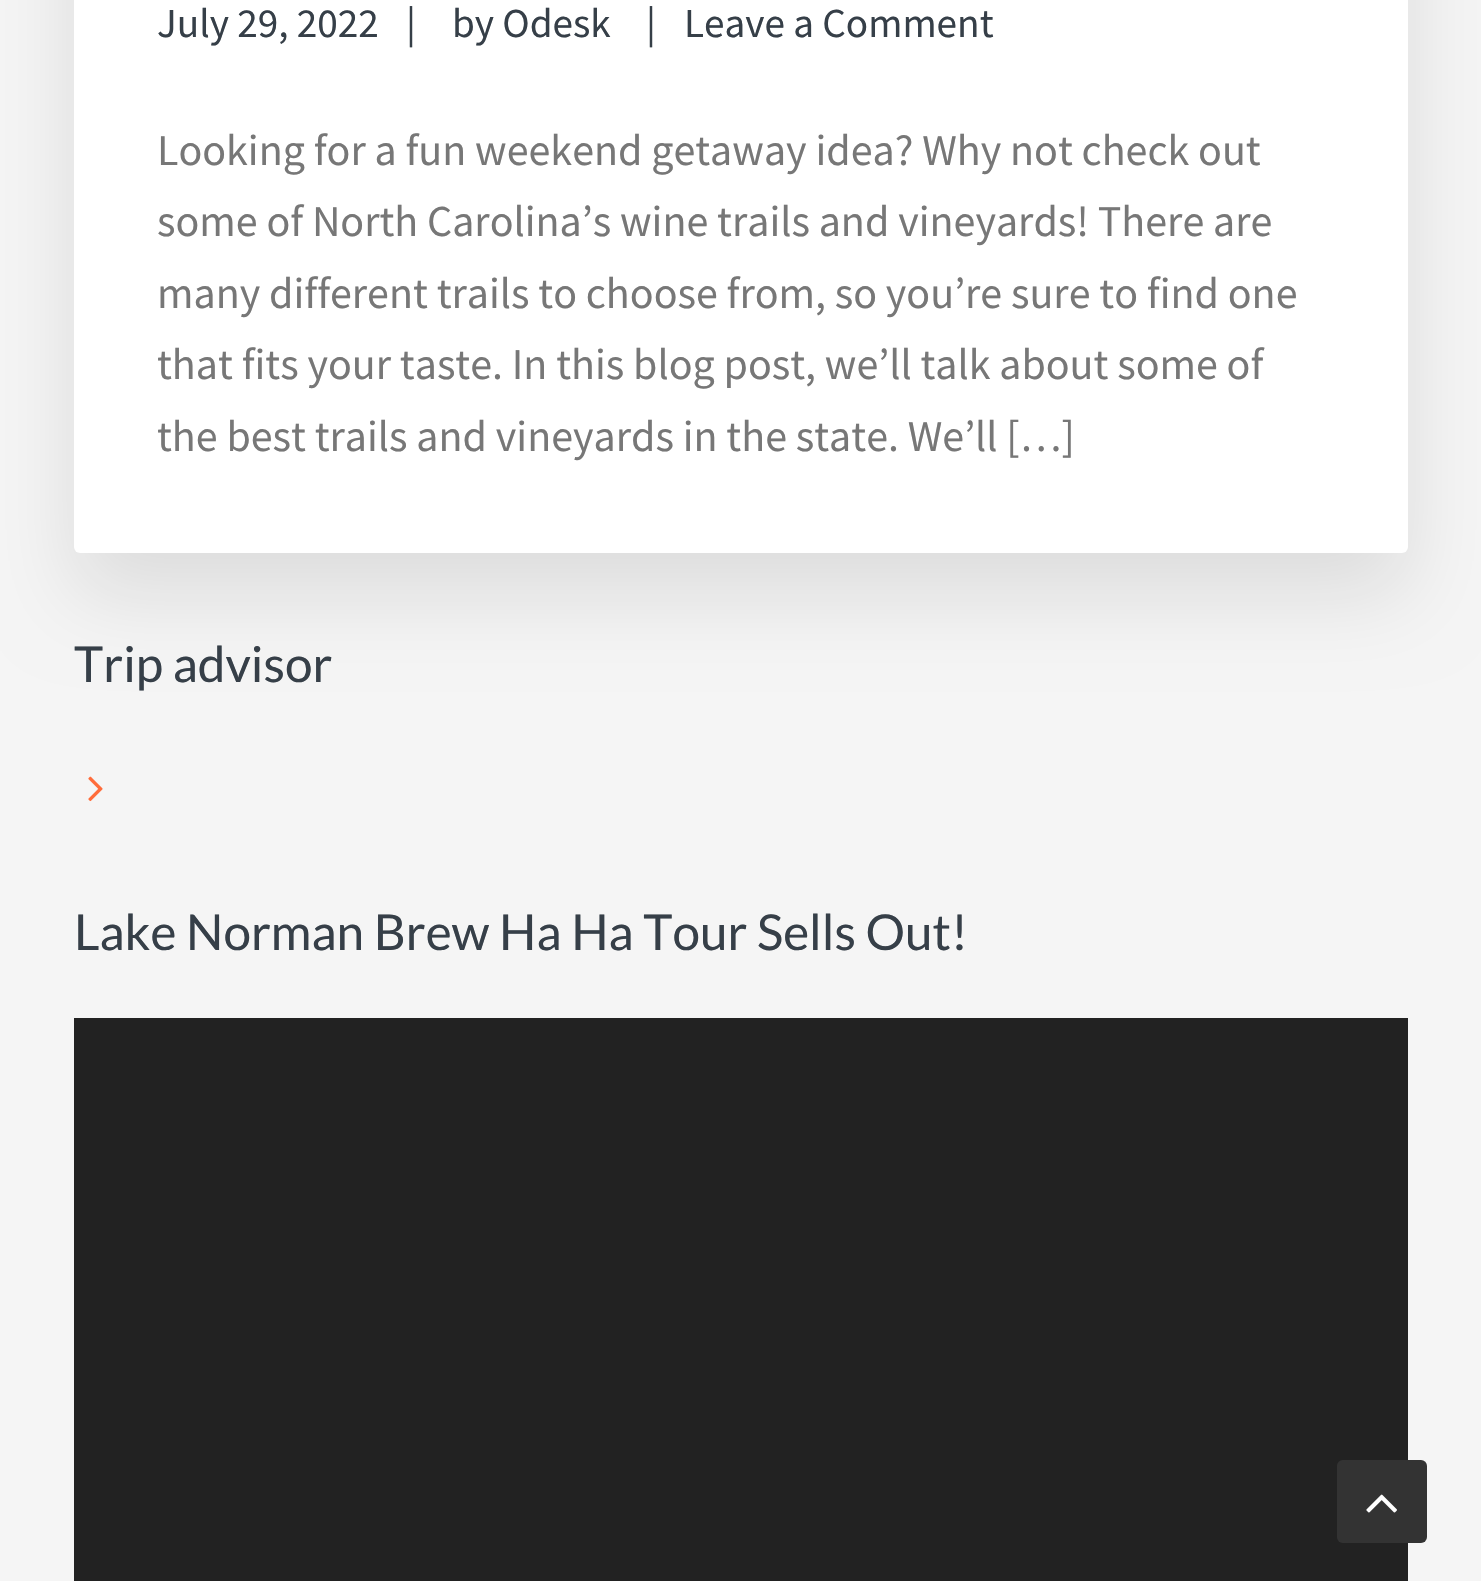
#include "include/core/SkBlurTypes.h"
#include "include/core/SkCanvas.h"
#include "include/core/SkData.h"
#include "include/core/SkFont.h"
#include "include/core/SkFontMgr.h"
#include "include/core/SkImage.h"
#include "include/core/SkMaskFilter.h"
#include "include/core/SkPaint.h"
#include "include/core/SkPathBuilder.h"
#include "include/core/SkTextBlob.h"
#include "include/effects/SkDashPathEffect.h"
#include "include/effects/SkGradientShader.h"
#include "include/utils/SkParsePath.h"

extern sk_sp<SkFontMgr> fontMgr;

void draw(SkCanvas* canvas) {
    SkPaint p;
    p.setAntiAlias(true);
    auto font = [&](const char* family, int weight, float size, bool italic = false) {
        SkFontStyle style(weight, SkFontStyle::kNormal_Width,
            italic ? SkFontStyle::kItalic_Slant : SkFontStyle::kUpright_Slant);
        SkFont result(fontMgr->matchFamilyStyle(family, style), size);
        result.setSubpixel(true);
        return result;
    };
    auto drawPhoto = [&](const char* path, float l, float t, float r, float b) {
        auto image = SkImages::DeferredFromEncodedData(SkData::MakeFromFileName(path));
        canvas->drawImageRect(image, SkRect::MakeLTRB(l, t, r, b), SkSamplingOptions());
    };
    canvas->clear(0xFFF5F5F5);
    p.setColor(0x1A000000);
    p.setMaskFilter(SkMaskFilter::MakeBlur(kNormal_SkBlurStyle, 41));
    canvas->drawRoundRect(SkRect::MakeLTRB(74, -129, 1408, 594), 6, 6, p);
    p.setMaskFilter(nullptr);
    p.setColor(0xFFFFFFFF);
    canvas->drawRoundRect(SkRect::MakeLTRB(74, -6, 1408, 553), 6, 6, p);
    auto font1 = font("Source Sans Pro", 400, 41.25f);
    p.setColor(0xFF363F48);
    {
        const struct { const char* s; float x, y; } items[] = {
            {"July 29, 2022", 157, 37},
            {"|", 406, 37},
            {"by Odesk", 452, 37},
            {"|", 646, 37},
            {"Leave a Comment", 684, 37},
        };
        for (auto [s, x, y] : items) {
            canvas->drawString(s, x, y, font1, p);
        }
    }
    auto font2 = font("Source Sans Pro", 400, 44);
    p.setColor(0xFF777777);
    {
        const struct { const char* s; float x, y; } items[] = {
            {"Looking for a fun weekend getaway idea? Why not check out", 157, 165},
            {"some of North Carolina’s wine trails and vineyards! There are", 157, 236},
            {"many different trails to choose from, so you’re sure to find one", 157, 308},
            {"that fits your taste. In this blog post, we’ll talk about some of", 157, 379},
            {"the best trails and vineyards in the state. We’ll […]", 157, 451},
        };
        for (auto [s, x, y] : items) {
            canvas->drawString(s, x, y, font2, p);
        }
    }
    auto font3 = font("Lato", 400, 49.5f);
    p.setColor(0xFF363F48);
    canvas->drawString("Trip advisor", 74, 682, font3, p);
    drawPhoto("media/1.png", 88, 776, 103, 802);
    canvas->drawString("Lake Norman Brew Ha Ha Tour Sells Out!", 74, 950, font3, p);
    p.setColor(0xFF222222);
    canvas->drawRect(SkRect::MakeLTRB(74, 1018, 1408, 1581), p);
    p.setColor(0xFF333333);
    canvas->drawRoundRect(SkRect::MakeLTRB(1337, 1460, 1427, 1543), 6, 6, p);
    drawPhoto("media/2.png", 1366, 1494, 1397, 1513);
}
